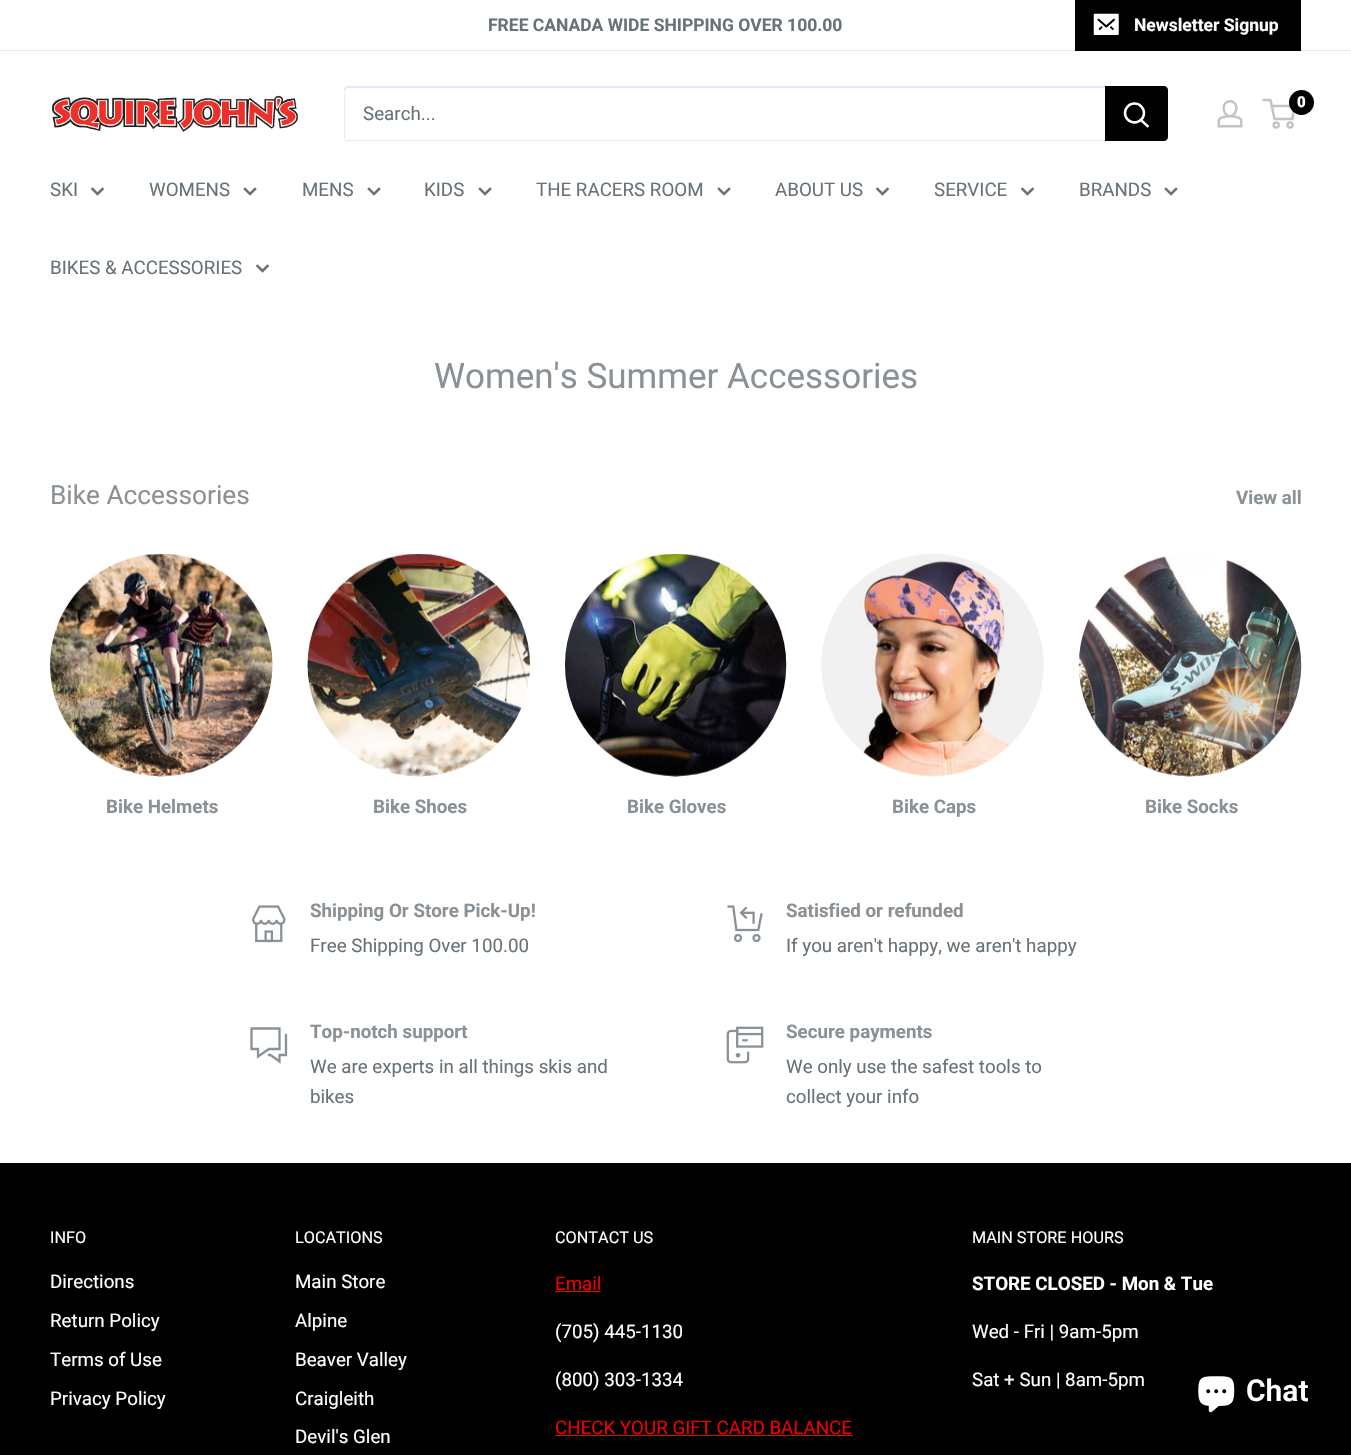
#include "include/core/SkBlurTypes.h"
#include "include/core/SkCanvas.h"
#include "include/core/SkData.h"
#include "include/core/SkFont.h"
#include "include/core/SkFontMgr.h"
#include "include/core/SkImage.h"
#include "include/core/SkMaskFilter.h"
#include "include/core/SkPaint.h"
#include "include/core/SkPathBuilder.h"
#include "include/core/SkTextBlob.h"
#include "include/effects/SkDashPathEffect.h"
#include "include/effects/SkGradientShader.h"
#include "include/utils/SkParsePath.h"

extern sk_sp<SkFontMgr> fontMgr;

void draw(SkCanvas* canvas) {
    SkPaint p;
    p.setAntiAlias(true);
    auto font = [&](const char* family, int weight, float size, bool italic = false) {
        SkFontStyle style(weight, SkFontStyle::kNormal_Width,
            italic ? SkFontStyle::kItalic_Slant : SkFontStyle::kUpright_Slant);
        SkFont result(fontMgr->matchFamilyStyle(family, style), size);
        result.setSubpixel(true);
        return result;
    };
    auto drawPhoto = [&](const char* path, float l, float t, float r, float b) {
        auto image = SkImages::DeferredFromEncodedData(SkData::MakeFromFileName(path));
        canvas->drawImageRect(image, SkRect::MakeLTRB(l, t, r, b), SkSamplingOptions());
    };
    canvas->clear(0xFFFFFFFF);
    p.setColor(0xFFE3E7FA);
    canvas->drawRect(SkRect::MakeLTRB(0, 50, 1351, 51), p);
    auto font1 = font("Roboto", 700, 17.5f);
    p.setColor(0xFF677279);
    canvas->drawString("FREE CANADA WIDE SHIPPING OVER 100.00", 488, 31, font1, p);
    p.setColor(0xFF000000);
    canvas->drawRect(SkRect::MakeLTRB(1075, 0, 1301, 51), p);
    drawPhoto("media/1.png", 1093, 13, 1119, 35);
    p.setColor(0xFFFFFFFF);
    canvas->drawString("Newsletter Signup", 1134, 31, font1, p);
    drawPhoto("media/2.png", 52, 95, 298, 132);
    drawPhoto("media/3.png", 1217, 100, 1243, 128);
    p.setStyle(SkPaint::kStroke_Style);
    p.setStrokeWidth(2.5f);
    p.setColor(0xFFC4C4C4);
    canvas->drawCircle(1276.2f, 125, 2.5f, p);
    canvas->drawCircle(1290, 125, 2.5f, p);
    canvas->drawPath(SkPathBuilder().moveTo(1271.5f, 106).lineTo(1294.5f, 106).lineTo(1292.5f, 119).lineTo(1274.5f, 119).lineTo(1270.5f, 100).lineTo(1262.5f, 100).detach(), p);
    p.setStyle(SkPaint::kFill_Style);
    p.setColor(0xFF000000);
    canvas->drawCircle(1301.5f, 102.5f, 12.5f, p);
    auto font2 = font("Roboto", 900, 15);
    p.setColor(0xFFFFFFFF);
    canvas->drawString("0", 1297, 107, font2, p);
    p.setColor(0xFFE3E7FA);
    canvas->drawPath(SkPathBuilder().moveTo(345, 140).cubicTo(346, 141, 347, 141, 348, 141).lineTo(1164, 141).cubicTo(1166, 141, 1168, 139, 1168, 137).lineTo(1168, 90).cubicTo(1168, 88, 1167, 87, 1165, 86).cubicTo(1166, 87, 1166, 88, 1166, 89).lineTo(1166, 136).cubicTo(1166, 138, 1165, 140, 1162, 140).close().detach(), p);
    p.setColor(0x4DA3AFEF);
    canvas->drawPath(SkPathBuilder().moveTo(349, 88).lineTo(1165, 88).lineTo(1168, 89).cubicTo(1167, 87, 1166, 86, 1164, 86).lineTo(348, 86).cubicTo(346, 86, 344, 88, 344, 90).lineTo(344, 137).cubicTo(344, 138, 344, 139, 345, 140).lineTo(345, 99).cubicTo(345, 95, 343, 88, 349, 88).close().detach(), p);
    auto font3 = font("Roboto", 400, 18.75f);
    p.setColor(0xFF677279);
    canvas->drawString("Search...", 363, 120, font3, p);
    p.setColor(0xFF000000);
    canvas->drawPath(SkPathBuilder().moveTo(1105, 86).lineTo(1164, 86).cubicTo(1166, 86, 1168, 88, 1168, 90).lineTo(1168, 137).cubicTo(1168, 139, 1166, 141, 1164, 141).lineTo(1105, 141).close().detach(), p);
    p.setStyle(SkPaint::kStroke_Style);
    p.setStrokeCap(SkPaint::kSquare_Cap);
    p.setColor(0xFFFFFFFF);
    canvas->drawPath(SkPathBuilder().moveTo(1147.5f, 126).lineTo(1141, 120).detach(), p);
    p.setStrokeCap(SkPaint::kButt_Cap);
    canvas->drawCircle(1134.5f, 113, 9.5f, p);
    p.setStyle(SkPaint::kFill_Style);
    p.setColor(0xFF677279);
    canvas->drawString("SKI", 50, 196, font3, p);
    p.setStyle(SkPaint::kStroke_Style);
    p.setStrokeCap(SkPaint::kSquare_Cap);
    canvas->drawPath(SkPathBuilder().moveTo(102.5f, 189).lineTo(97.5f, 194).lineTo(92.5f, 189).detach(), p);
    p.setStyle(SkPaint::kFill_Style);
    canvas->drawString("WOMENS", 149, 196, font3, p);
    p.setStyle(SkPaint::kStroke_Style);
    canvas->drawPath(SkPathBuilder().moveTo(255, 189).lineTo(250, 194).lineTo(245, 189).detach(), p);
    p.setStyle(SkPaint::kFill_Style);
    canvas->drawString("MENS", 302, 196, font3, p);
    p.setStyle(SkPaint::kStroke_Style);
    canvas->drawPath(SkPathBuilder().moveTo(379, 189).lineTo(374, 194).lineTo(369, 189).detach(), p);
    p.setStyle(SkPaint::kFill_Style);
    canvas->drawString("KIDS", 424, 196, font3, p);
    p.setStyle(SkPaint::kStroke_Style);
    canvas->drawPath(SkPathBuilder().moveTo(490, 189).lineTo(485, 194).lineTo(480, 189).detach(), p);
    p.setStyle(SkPaint::kFill_Style);
    canvas->drawString("THE RACERS ROOM", 536, 196, font3, p);
    p.setStyle(SkPaint::kStroke_Style);
    canvas->drawPath(SkPathBuilder().moveTo(729, 189).lineTo(724, 194).lineTo(719, 189).detach(), p);
    p.setStyle(SkPaint::kFill_Style);
    canvas->drawString("ABOUT US", 775, 196, font3, p);
    p.setStyle(SkPaint::kStroke_Style);
    canvas->drawPath(SkPathBuilder().moveTo(887.5f, 189).lineTo(882.5f, 194).lineTo(877.5f, 189).detach(), p);
    p.setStyle(SkPaint::kFill_Style);
    canvas->drawString("SERVICE", 934, 196, font3, p);
    p.setStyle(SkPaint::kStroke_Style);
    canvas->drawPath(SkPathBuilder().moveTo(1032.5f, 189).lineTo(1027.5f, 194).lineTo(1022.5f, 189).detach(), p);
    p.setStyle(SkPaint::kFill_Style);
    canvas->drawString("BRANDS", 1079, 196, font3, p);
    p.setStyle(SkPaint::kStroke_Style);
    canvas->drawPath(SkPathBuilder().moveTo(1176, 189).lineTo(1171, 194).lineTo(1166, 189).detach(), p);
    p.setStyle(SkPaint::kFill_Style);
    canvas->drawString("BIKES & ACCESSORIES", 50, 274, font3, p);
    p.setStyle(SkPaint::kStroke_Style);
    canvas->drawPath(SkPathBuilder().moveTo(267.5f, 266).lineTo(262.5f, 271).lineTo(257.5f, 266).detach(), p);
    auto font4 = font("Roboto", 400, 35);
    p.setStyle(SkPaint::kFill_Style);
    p.setColor(0xFF8A9297);
    canvas->drawString("Women's Summer Accessories", 434, 388, font4, p);
    auto font5 = font("Roboto", 400, 26.25f);
    canvas->drawString("Bike Accessories", 50, 504, font5, p);
    auto font6 = font("Roboto", 700, 18.75f);
    canvas->drawString("View all", 1236, 504, font6, p);
    drawPhoto("media/4.png", 50, 554, 273, 777);
    canvas->drawString("Bike Helmets", 106, 813, font6, p);
    drawPhoto("media/5.png", 307, 554, 530, 777);
    canvas->drawString("Bike Shoes", 373, 813, font6, p);
    drawPhoto("media/6.png", 565, 554, 787, 777);
    canvas->drawString("Bike Gloves", 627, 813, font6, p);
    drawPhoto("media/7.png", 821, 554, 1044, 777);
    canvas->drawString("Bike Caps", 892, 813, font6, p);
    drawPhoto("media/8.png", 1078, 556, 1302, 777);
    canvas->drawString("Bike Socks", 1145, 813, font6, p);
    drawPhoto("media/9.png", 252, 905, 286, 943);
    canvas->drawString("Shipping Or Store Pick-Up!", 310, 917, font6, p);
    p.setColor(0xFF677279);
    canvas->drawString("Free Shipping Over 100.00", 310, 952, font3, p);
    drawPhoto("media/10.png", 727, 905, 763, 943);
    p.setColor(0xFF8A9297);
    canvas->drawString("Satisfied or refunded", 786, 917, font6, p);
    p.setColor(0xFF677279);
    canvas->drawString("If you aren't happy, we aren't happy", 786, 952, font3, p);
    p.setStyle(SkPaint::kStroke_Style);
    p.setStrokeWidth(2.3f);
    p.setColor(0xFF8A9297);
    canvas->drawPath(SkPathBuilder().moveTo(286, 1035).lineTo(286, 1055).lineTo(279.5f, 1055).lineTo(279.5f, 1061.5f).lineTo(270.5f, 1055).lineTo(269, 1055).moveTo(279.5f, 1028.5f).lineTo(251.5f, 1028.5f).lineTo(251.5f, 1049).lineTo(258, 1049).lineTo(258, 1056.5f).lineTo(269, 1049).lineTo(279.5f, 1049).close().detach(), p);
    p.setStyle(SkPaint::kFill_Style);
    canvas->drawString("Top-notch support", 310, 1038, font6, p);
    p.setColor(0xFF677279);
    canvas->drawString("We are experts in all things skis and", 310, 1073, font3, p);
    canvas->drawString("bikes", 310, 1103, font3, p);
    drawPhoto("media/11.png", 726, 1026, 764, 1064);
    p.setColor(0xFF8A9297);
    canvas->drawString("Secure payments", 786, 1038, font6, p);
    p.setColor(0xFF677279);
    canvas->drawString("We only use the safest tools to", 786, 1073, font3, p);
    canvas->drawString("collect your info", 786, 1103, font3, p);
    p.setColor(0xFF000000);
    canvas->drawRect(SkRect::MakeLTRB(0, 1163, 1351, 1455), p);
    auto font7 = font("Roboto", 400, 16.25f);
    p.setColor(0xFFFFFFFF);
    canvas->drawString("INFO", 50, 1243, font7, p);
    {
        const struct { const char* s; float x, y; } items[] = {
            {"Directions", 50, 1288},
            {"Return Policy", 50, 1327},
            {"Terms of Use", 50, 1366},
            {"Privacy Policy", 50, 1405},
        };
        for (auto [s, x, y] : items) {
            canvas->drawString(s, x, y, font3, p);
        }
    }
    canvas->drawString("LOCATIONS", 295, 1243, font7, p);
    {
        const struct { const char* s; float x, y; } items[] = {
            {"Main Store", 295, 1288},
            {"Alpine", 295, 1327},
            {"Beaver Valley", 295, 1366},
            {"Craigleith", 295, 1405},
            {"Devil's Glen", 295, 1443},
        };
        for (auto [s, x, y] : items) {
            canvas->drawString(s, x, y, font3, p);
        }
    }
    canvas->drawString("CONTACT US", 555, 1243, font7, p);
    p.setColor(0xFFEE0000);
    canvas->drawString("Email", 555, 1290, font3, p);
    canvas->drawRect(SkRect::MakeLTRB(555, 1291, 601, 1292), p);
    p.setColor(0xFFFFFFFF);
    canvas->drawString("(705) 445-1130", 555, 1338, font3, p);
    canvas->drawString("(800) 303-1334", 555, 1386, font3, p);
    p.setColor(0xFFEE0000);
    canvas->drawString("CHECK YOUR GIFT CARD BALANCE", 555, 1434, font3, p);
    canvas->drawRect(SkRect::MakeLTRB(555, 1435, 853, 1436), p);
    p.setColor(0xFFFFFFFF);
    canvas->drawString("MAIN STORE HOURS", 972, 1243, font7, p);
    canvas->drawString("STORE CLOSED - Mon & Tue", 972, 1290, font6, p);
    canvas->drawString("Wed - Fri | 9am-5pm", 972, 1338, font3, p);
    canvas->drawString("Sat + Sun | 8am-5pm", 972, 1386, font3, p);
    drawPhoto("media/12.png", 1198, 1376, 1235, 1413);
    auto font8 = font("Roboto", 600, 30);
    canvas->drawString("Chat", 1246, 1401, font8, p);
}
